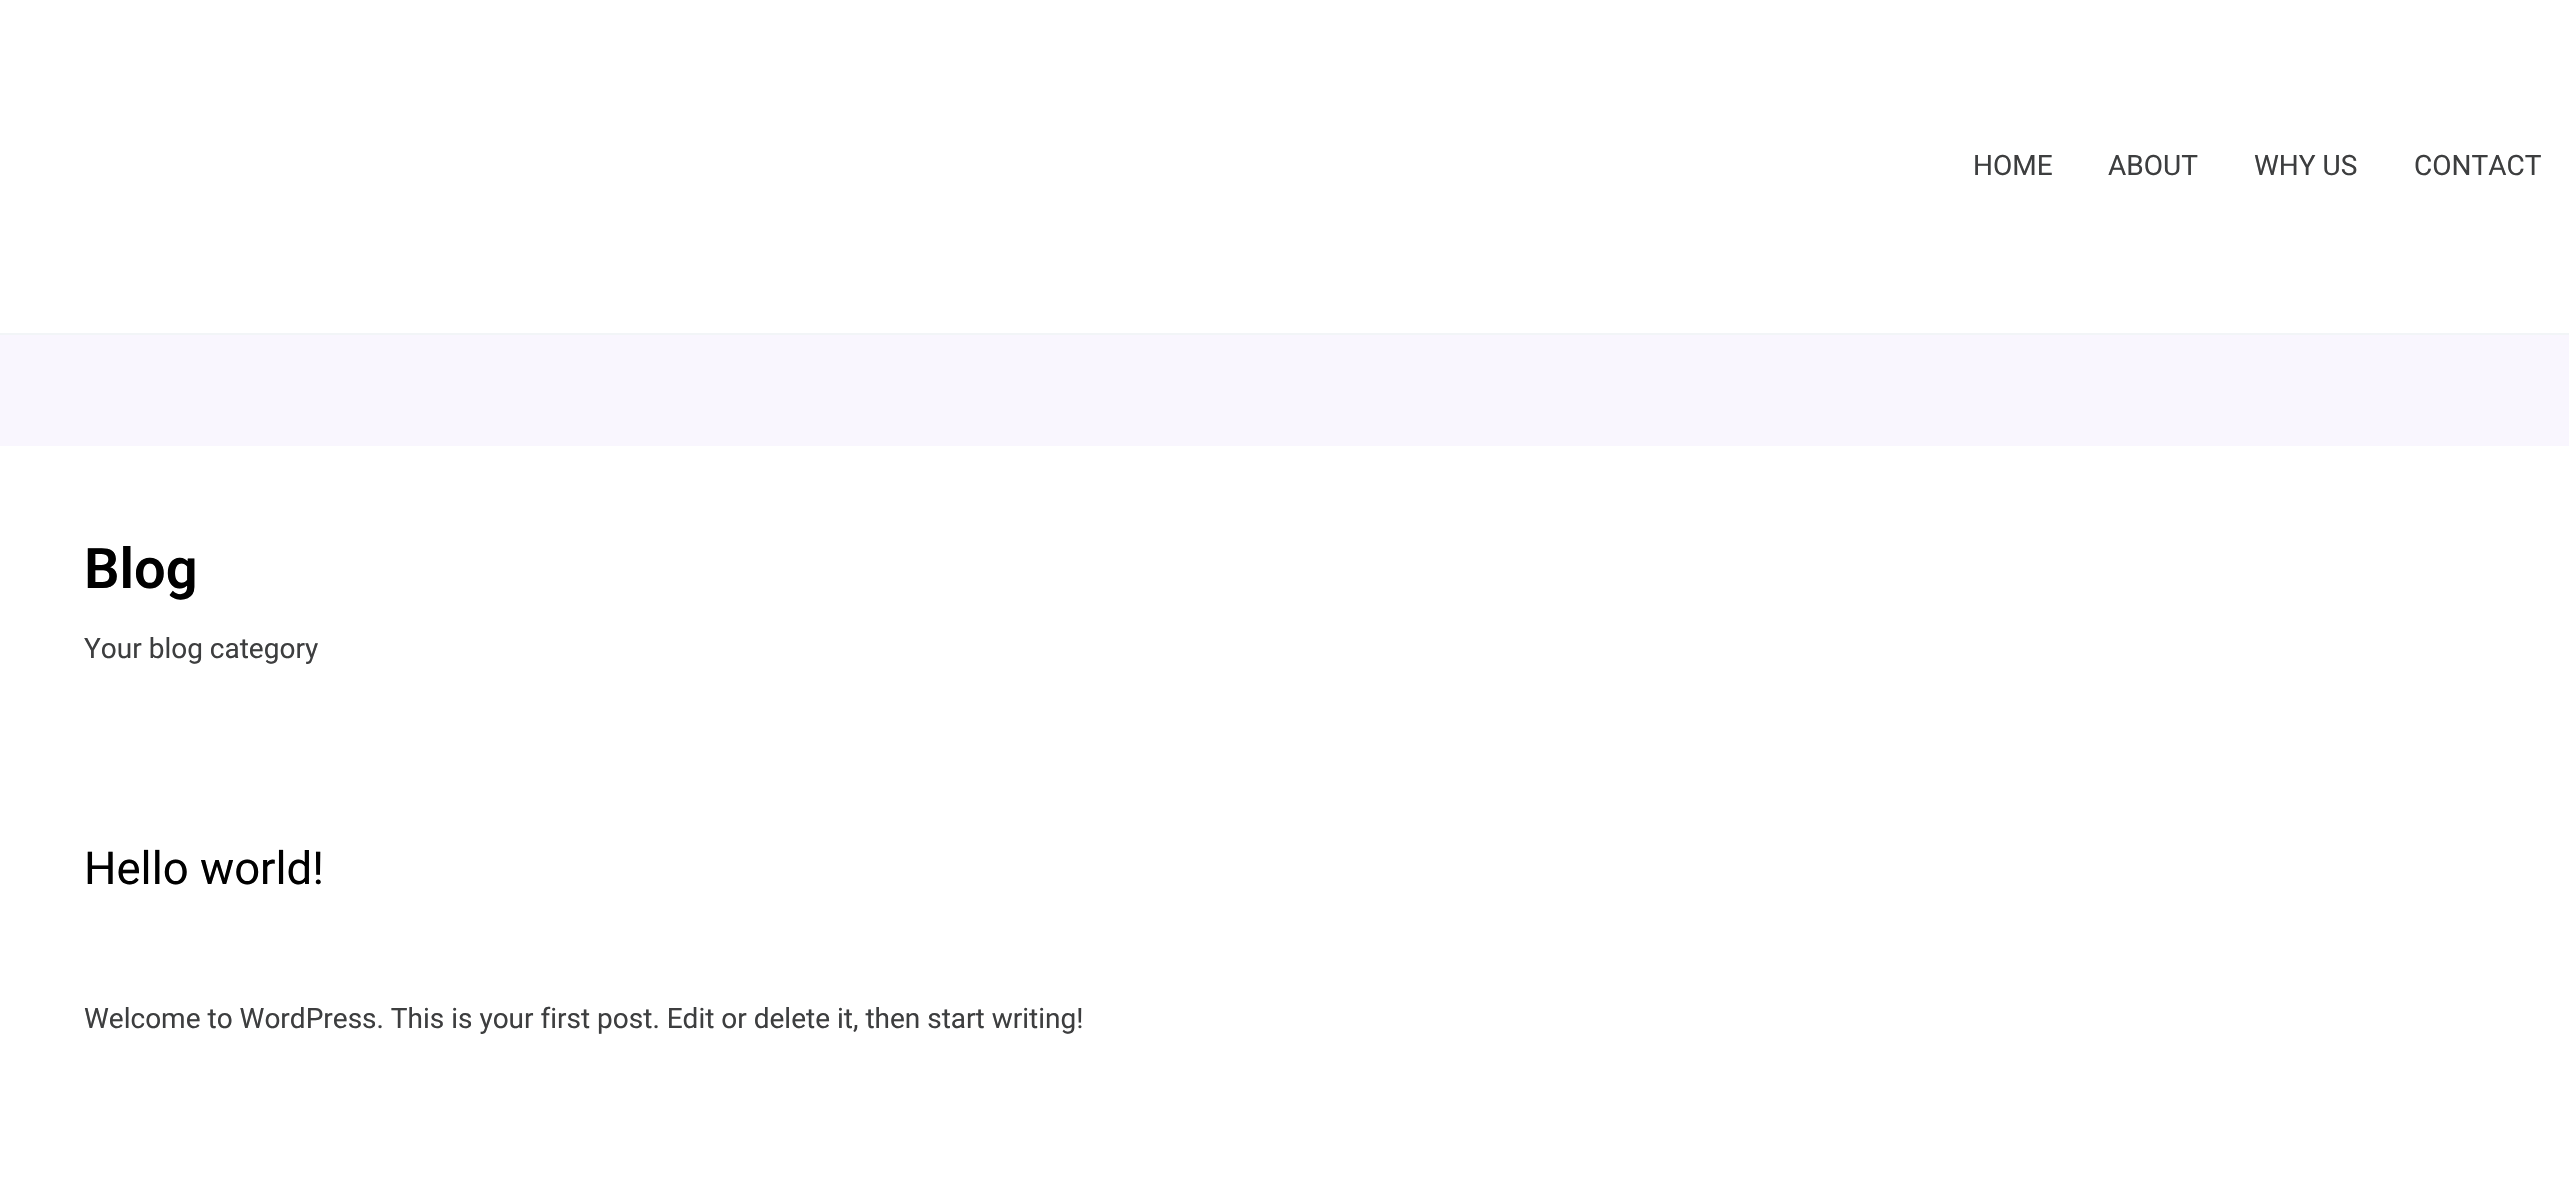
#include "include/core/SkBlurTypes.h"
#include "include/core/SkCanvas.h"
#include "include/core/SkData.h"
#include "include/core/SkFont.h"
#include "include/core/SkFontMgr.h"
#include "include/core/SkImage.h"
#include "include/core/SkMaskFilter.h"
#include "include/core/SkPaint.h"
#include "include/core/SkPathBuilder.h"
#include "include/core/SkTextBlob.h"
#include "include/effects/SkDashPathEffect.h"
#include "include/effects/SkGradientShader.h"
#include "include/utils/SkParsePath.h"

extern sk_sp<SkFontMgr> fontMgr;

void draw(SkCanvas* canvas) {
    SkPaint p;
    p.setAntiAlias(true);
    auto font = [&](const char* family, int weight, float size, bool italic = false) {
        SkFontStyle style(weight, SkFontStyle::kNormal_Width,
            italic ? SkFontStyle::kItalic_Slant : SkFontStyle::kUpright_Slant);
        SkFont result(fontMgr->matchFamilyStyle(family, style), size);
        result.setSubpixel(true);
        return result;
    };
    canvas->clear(0xFFF9F6FE);
    p.setColor(0xFFFFFFFF);
    canvas->drawRect(SkRect::MakeLTRB(0, 0, 2569, 333), p);
    p.setColor(0xFFF2F5F7);
    canvas->drawRect(SkRect::MakeLTRB(0, 333, 2569, 335), p);
    auto font1 = font("Roboto", 400, 28);
    p.setColor(0xFF3D3E3F);
    {
        const struct { const char* s; float x, y; } items[] = {
            {"HOME", 1973, 175},
            {"ABOUT", 2108, 175},
            {"WHY US", 2254, 175},
            {"CONTACT", 2414, 175},
        };
        for (auto [s, x, y] : items) {
            canvas->drawString(s, x, y, font1, p);
        }
    }
    p.setColor(0xFFFFFFFF);
    canvas->drawRect(SkRect::MakeLTRB(0, 446, 2569, 1179), p);
    auto font2 = font("Roboto", 600, 56);
    p.setColor(0xFF000000);
    canvas->drawString("Blog", 84, 588, font2, p);
    p.setColor(0xFF3D3E3F);
    canvas->drawString("Your blog category", 84, 658, font1, p);
    auto font3 = font("Roboto", 400, 45.5f);
    p.setColor(0xFF000000);
    canvas->drawString("Hello world!", 84, 884, font3, p);
    p.setColor(0xFF3D3E3F);
    canvas->drawString("Welcome to WordPress. This is your first post. Edit or delete it, then start writing!", 84, 1028, font1, p);
}
